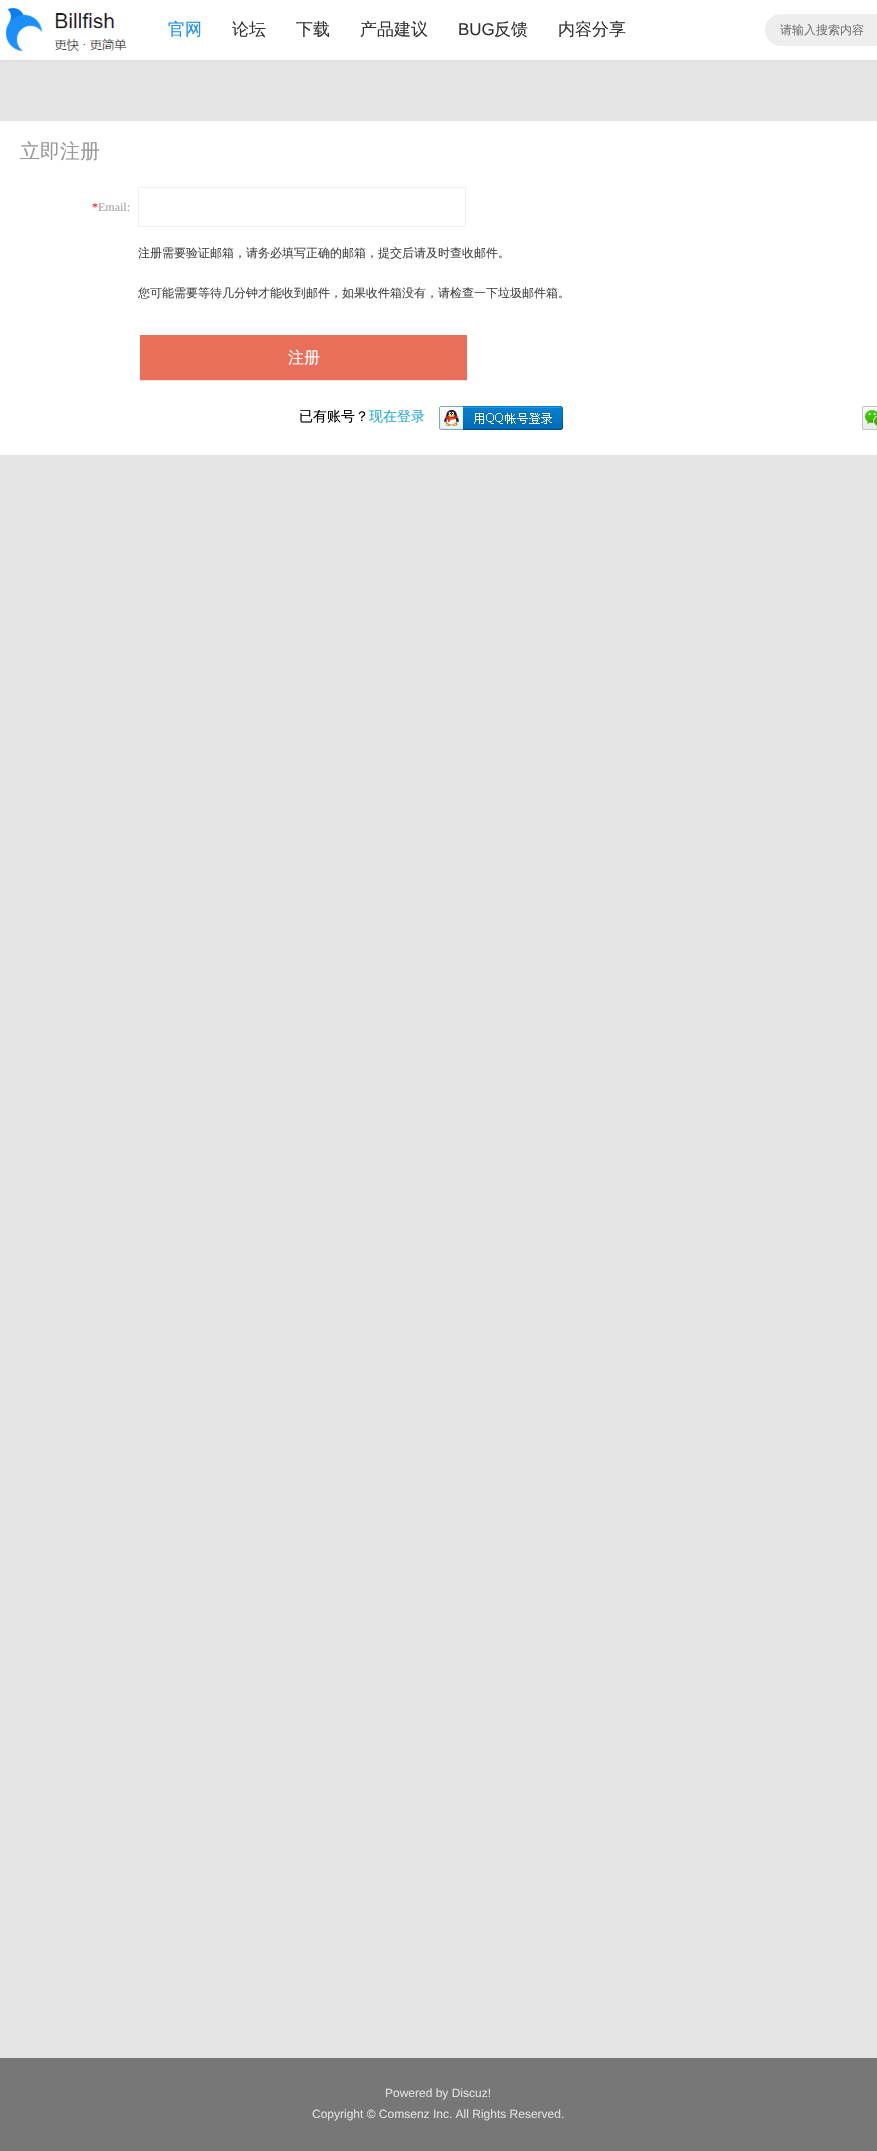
#include "include/core/SkBlurTypes.h"
#include "include/core/SkCanvas.h"
#include "include/core/SkData.h"
#include "include/core/SkFont.h"
#include "include/core/SkFontMgr.h"
#include "include/core/SkImage.h"
#include "include/core/SkMaskFilter.h"
#include "include/core/SkPaint.h"
#include "include/core/SkPathBuilder.h"
#include "include/core/SkTextBlob.h"
#include "include/effects/SkDashPathEffect.h"
#include "include/effects/SkGradientShader.h"
#include "include/utils/SkParsePath.h"

extern sk_sp<SkFontMgr> fontMgr;

void draw(SkCanvas* canvas) {
    SkPaint p;
    p.setAntiAlias(true);
    auto font = [&](const char* family, int weight, float size, bool italic = false) {
        SkFontStyle style(weight, SkFontStyle::kNormal_Width,
            italic ? SkFontStyle::kItalic_Slant : SkFontStyle::kUpright_Slant);
        SkFont result(fontMgr->matchFamilyStyle(family, style), size);
        result.setSubpixel(true);
        return result;
    };
    auto drawPhoto = [&](const char* path, float l, float t, float r, float b) {
        auto image = SkImages::DeferredFromEncodedData(SkData::MakeFromFileName(path));
        canvas->drawImageRect(image, SkRect::MakeLTRB(l, t, r, b), SkSamplingOptions());
    };
    canvas->clear(0xFFE5E5E5);
    p.setColor(0xFFF0F0F0);
    canvas->drawRect(SkRect::MakeLTRB(0, 60, 877, 61), p);
    p.setColor(0x1A000000);
    p.setMaskFilter(SkMaskFilter::MakeBlur(kNormal_SkBlurStyle, 1));
    canvas->drawRect(SkRect::MakeLTRB(0, 1, 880, 61), p);
    p.setMaskFilter(nullptr);
    p.setColor(0xFFFFFFFF);
    canvas->drawRect(SkRect::MakeLTRB(0, 0, 877, 60), p);
    drawPhoto("media/1.png", 6, 8, 127, 52);
    auto font1 = font("WenQuanYi Zen Hei", 500, 17);
    p.setColor(0xFF1B90FB);
    canvas->drawString("官网", 168, 35, font1, p);
    p.setColor(0xFF333333);
    {
        const struct { const char* s; float x, y; } items[] = {
            {"论坛", 232, 35},
            {"下载", 296, 35},
            {"产品建议", 360, 35},
        };
        for (auto [s, x, y] : items) {
            canvas->drawString(s, x, y, font1, p);
        }
    }
    auto font2 = font("Liberation Sans", 400, 17);
    canvas->drawString("BUG", 458, 35, font2, p);
    canvas->drawString("反馈", 494, 35, font1, p);
    canvas->drawString("内容分享", 558, 35, font1, p);
    p.setColor(0xFFEEEEEE);
    canvas->drawRoundRect(SkRect::MakeLTRB(765, 14, 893, 46), 16, 16, p);
    auto font3 = font("WenQuanYi Zen Hei", 500, 12);
    p.setColor(0xFF757575);
    canvas->drawString("请输入搜索内容", 780, 34, font3, p);
    p.setColor(0xFFFFFFFF);
    canvas->drawRect(SkRect::MakeLTRB(0, 121, 877, 455), p);
    auto font4 = font("WenQuanYi Zen Hei", 500, 20);
    p.setColor(0xFF999999);
    canvas->drawString("立即注册", 20, 158, font4, p);
    auto font5 = font("Liberation Serif", 400, 12);
    p.setColor(0xFFFF0000);
    canvas->drawString("*", 92, 211, font5, p);
    p.setColor(0xFFA2A2A2);
    canvas->drawString("Email:", 98, 211, font5, p);
    p.setStyle(SkPaint::kStroke_Style);
    p.setStrokeWidth(1);
    p.setColor(0xFFEFEFEF);
    canvas->drawRect(SkRect::MakeLTRB(138.5f, 187.5f, 465.5f, 226.5f), p);
    p.setStyle(SkPaint::kFill_Style);
    p.setColor(0xFF444444);
    canvas->drawString("注册需要验证邮箱，请务必填写正确的邮箱，提交后请及时查收邮件。", 138, 257, font3, p);
    canvas->drawString("您可能需要等待几分钟才能收到邮件，如果收件箱没有，请检查一下垃圾邮件箱。", 138, 297, font3, p);
    p.setColor(0xFFE5E5E5);
    canvas->drawRect(SkRect::MakeLTRB(140, 380, 467, 381), p);
    p.setColor(0xFFEA6F5A);
    canvas->drawRect(SkRect::MakeLTRB(140, 335, 467, 380), p);
    auto font6 = font("WenQuanYi Zen Hei", 500, 16);
    p.setColor(0xFFFFFFFF);
    canvas->drawString("注册", 288, 363, font6, p);
    auto font7 = font("WenQuanYi Zen Hei", 500, 14);
    p.setColor(0xFF000000);
    canvas->drawString("已有账号？", 299, 421, font7, p);
    p.setColor(0xFF26AAD6);
    canvas->drawString("现在登录", 369, 421, font7, p);
    drawPhoto("media/2.png", 439, 406, 563, 430);
    drawPhoto("media/3.png", 862, 406, 877, 430);
    p.setColor(0xFF777777);
    canvas->drawRect(SkRect::MakeLTRB(0, 2058, 877, 2151), p);
    auto font8 = font("Liberation Sans", 400, 12);
    p.setColor(0xFFDFDFDF);
    canvas->drawString("Powered by Discuz!", 385, 2097, font8, p);
    canvas->drawString("Copyright © Comsenz Inc. All Rights Reserved.", 312, 2118, font8, p);
}
